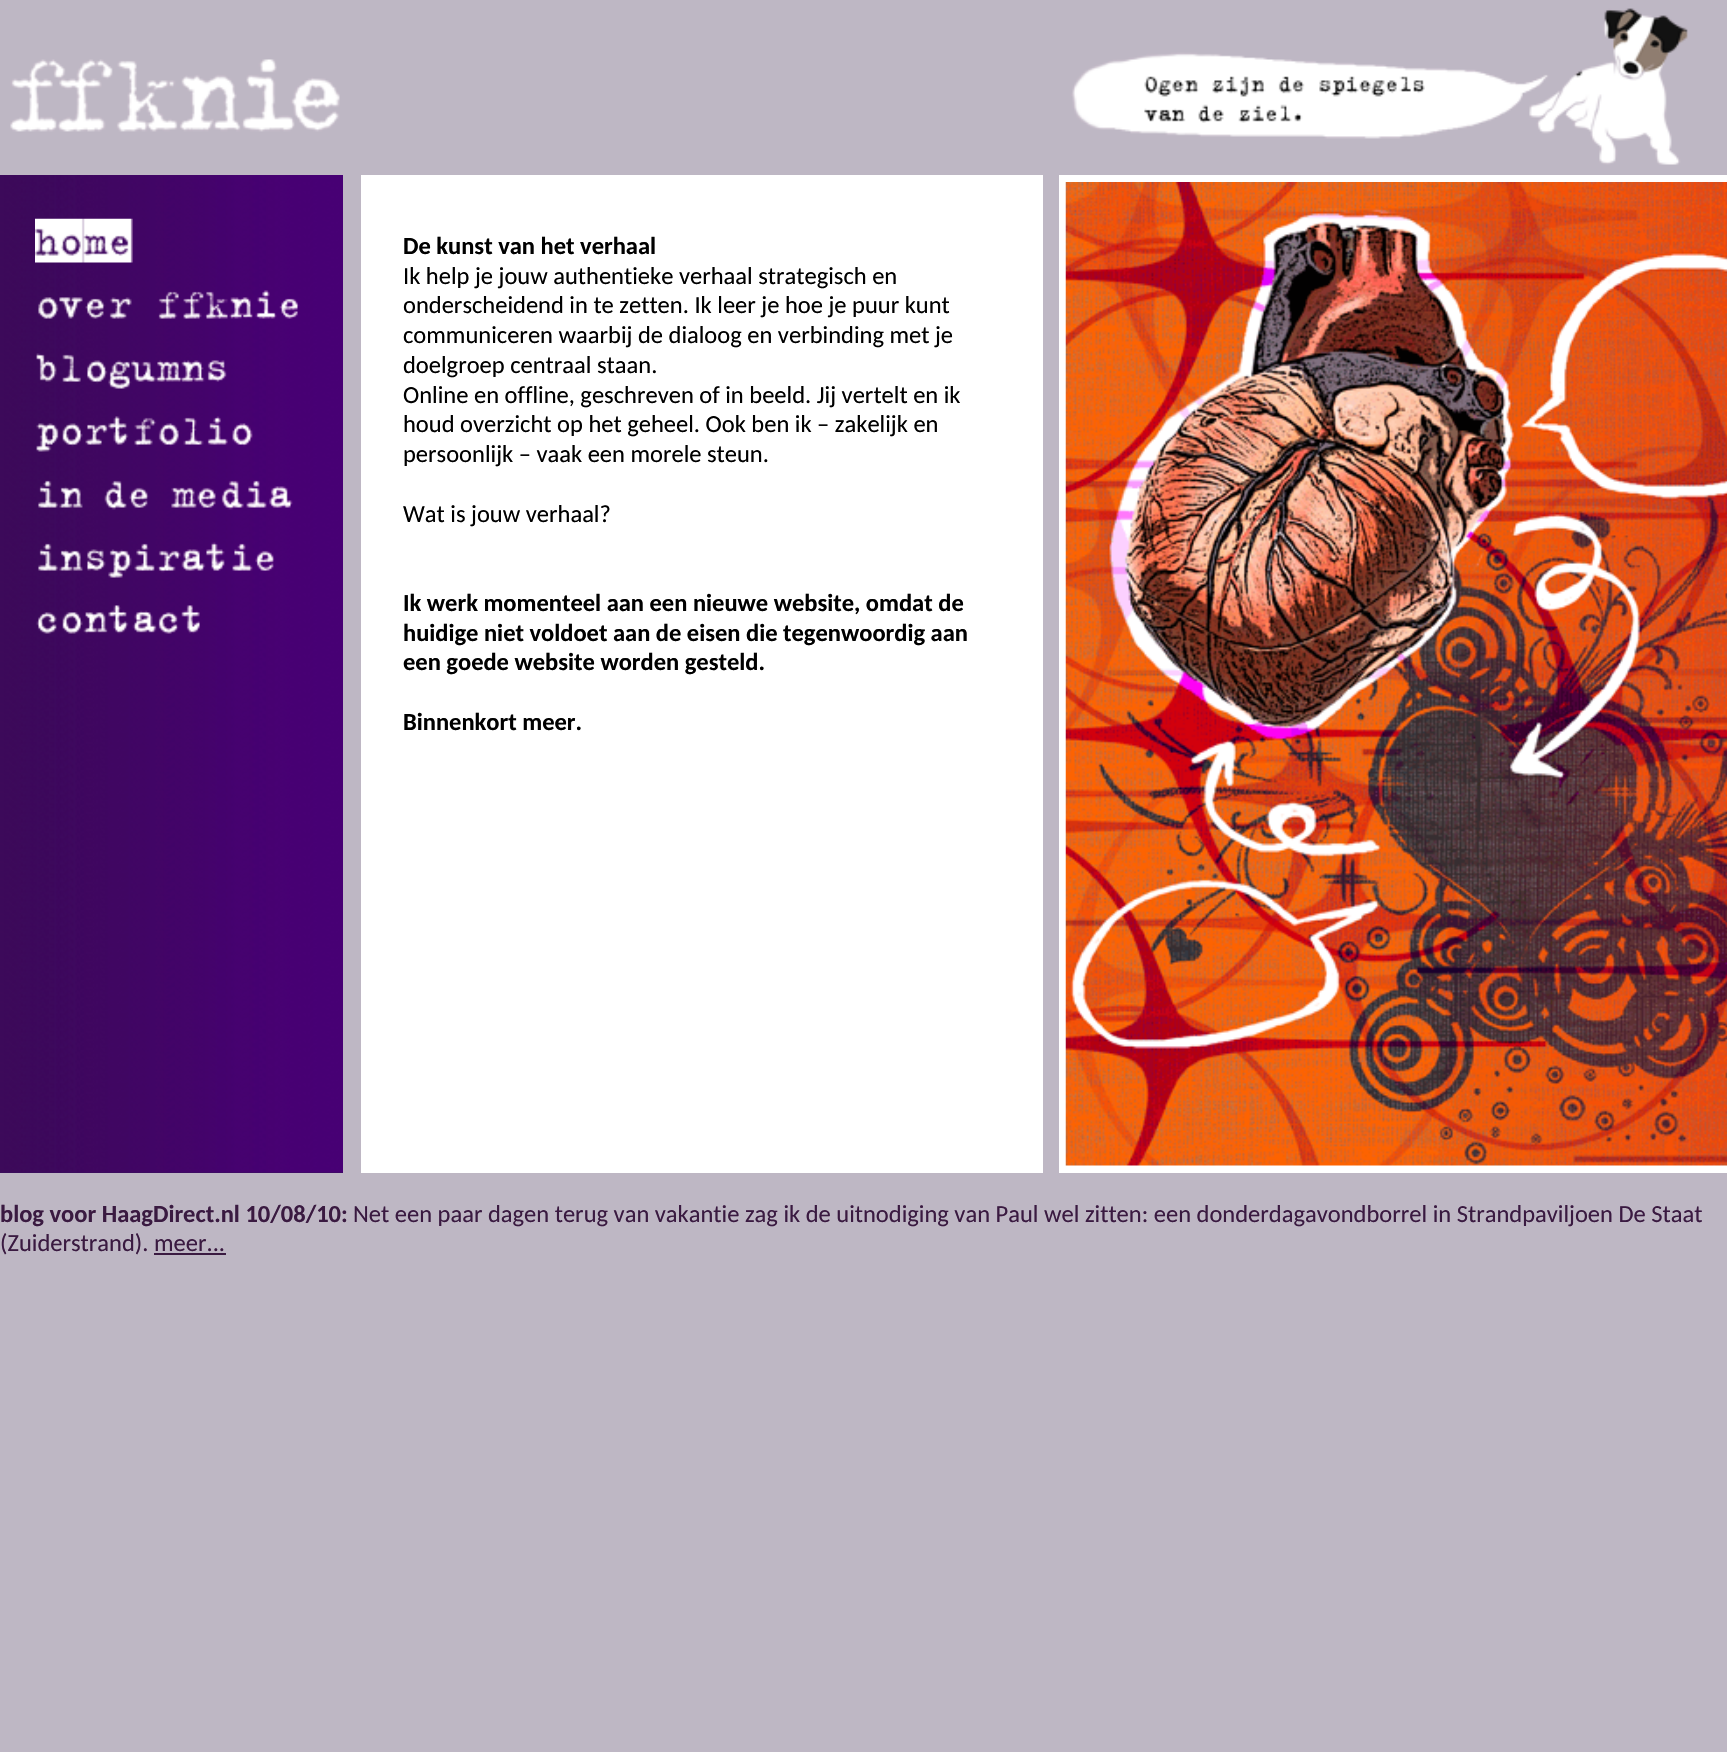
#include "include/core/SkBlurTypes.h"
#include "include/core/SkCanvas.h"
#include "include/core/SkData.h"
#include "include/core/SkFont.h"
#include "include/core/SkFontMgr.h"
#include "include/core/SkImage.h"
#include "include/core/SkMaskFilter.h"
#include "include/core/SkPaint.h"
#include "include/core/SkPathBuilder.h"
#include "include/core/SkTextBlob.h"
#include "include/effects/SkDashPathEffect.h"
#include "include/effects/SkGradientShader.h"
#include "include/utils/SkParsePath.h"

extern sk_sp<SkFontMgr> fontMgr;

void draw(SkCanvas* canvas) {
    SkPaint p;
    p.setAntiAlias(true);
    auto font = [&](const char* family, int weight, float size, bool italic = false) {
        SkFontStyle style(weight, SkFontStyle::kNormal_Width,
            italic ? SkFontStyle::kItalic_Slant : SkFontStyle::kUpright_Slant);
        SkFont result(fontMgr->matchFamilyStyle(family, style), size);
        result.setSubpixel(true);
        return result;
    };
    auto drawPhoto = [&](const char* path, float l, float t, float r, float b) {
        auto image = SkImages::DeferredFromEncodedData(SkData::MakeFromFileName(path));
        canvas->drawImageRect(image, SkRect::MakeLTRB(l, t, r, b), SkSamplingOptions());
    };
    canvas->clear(0xFFBEB7C4);
    drawPhoto("media/1.png", 10, 8, 1688, 165);
    p.setColor(0xFF37115C);
    canvas->drawRect(SkRect::MakeLTRB(0, 1172, 343, 1173), p);
    drawPhoto("media/2.png", 0, 175, 343, 1173);
    drawPhoto("media/3.png", 35, 218, 133, 263);
    drawPhoto("media/4.png", 38, 290, 300, 319);
    drawPhoto("media/5.png", 36, 353, 227, 389);
    drawPhoto("media/6.png", 36, 416, 253, 452);
    drawPhoto("media/7.png", 38, 480, 293, 510);
    drawPhoto("media/8.png", 38, 542, 275, 578);
    drawPhoto("media/9.png", 36, 605, 200, 634);
    p.setColor(0xFFFFFFFF);
    canvas->drawRect(SkRect::MakeLTRB(361, 175, 1043, 1173), p);
    auto font1 = font("Carlito", 700, 24.5f);
    p.setColor(0xFF000000);
    canvas->drawString("De kunst van het verhaal", 403, 254, font1, p);
    auto font2 = font("Carlito", 400, 24.5f);
    {
        const struct { const char* s; float x, y; } items[] = {
            {"Ik help je jouw authentieke verhaal strategisch en", 403, 284},
            {"onderscheidend in te zetten. Ik leer je hoe je puur kunt", 403, 313},
            {"communiceren waarbij de dialoog en verbinding met je", 403, 343},
            {"doelgroep centraal staan.", 403, 373},
            {"Online en offline, geschreven of in beeld. Jij vertelt en ik", 403, 403},
            {"houd overzicht op het geheel. Ook ben ik – zakelijk en", 403, 432},
            {"persoonlijk – vaak een morele steun.", 403, 462},
            {"Wat is jouw verhaal?", 403, 522},
        };
        for (auto [s, x, y] : items) {
            canvas->drawString(s, x, y, font2, p);
        }
    }
    {
        const struct { const char* s; float x, y; } items[] = {
            {"Ik werk momenteel aan een nieuwe website, omdat de", 403, 611},
            {"huidige niet voldoet aan de eisen die tegenwoordig aan", 403, 641},
            {"een goede website worden gesteld.", 403, 670},
            {"Binnenkort meer.", 403, 730},
        };
        for (auto [s, x, y] : items) {
            canvas->drawString(s, x, y, font1, p);
        }
    }
    p.setColor(0xFFFFFFFF);
    canvas->drawRect(SkRect::MakeLTRB(1059, 175, 1727, 1173), p);
    drawPhoto("media/10.png", 1065, 182, 1727, 1166);
    p.setColor(0xFF3A1A41);
    canvas->drawString("blog voor HaagDirect.nl 10/08/10:", 0, 1222, font1, p);
    canvas->drawString("Net een paar dagen terug van vakantie zag ik de uitnodiging van Paul wel zitten: een donderdagavondborrel in Strandpaviljoen De Staat", 353, 1222, font2, p);
    canvas->drawString("(Zuiderstrand). meer...", 0, 1251, font2, p);
    canvas->drawRect(SkRect::MakeLTRB(154, 1253, 226, 1255), p);
}
